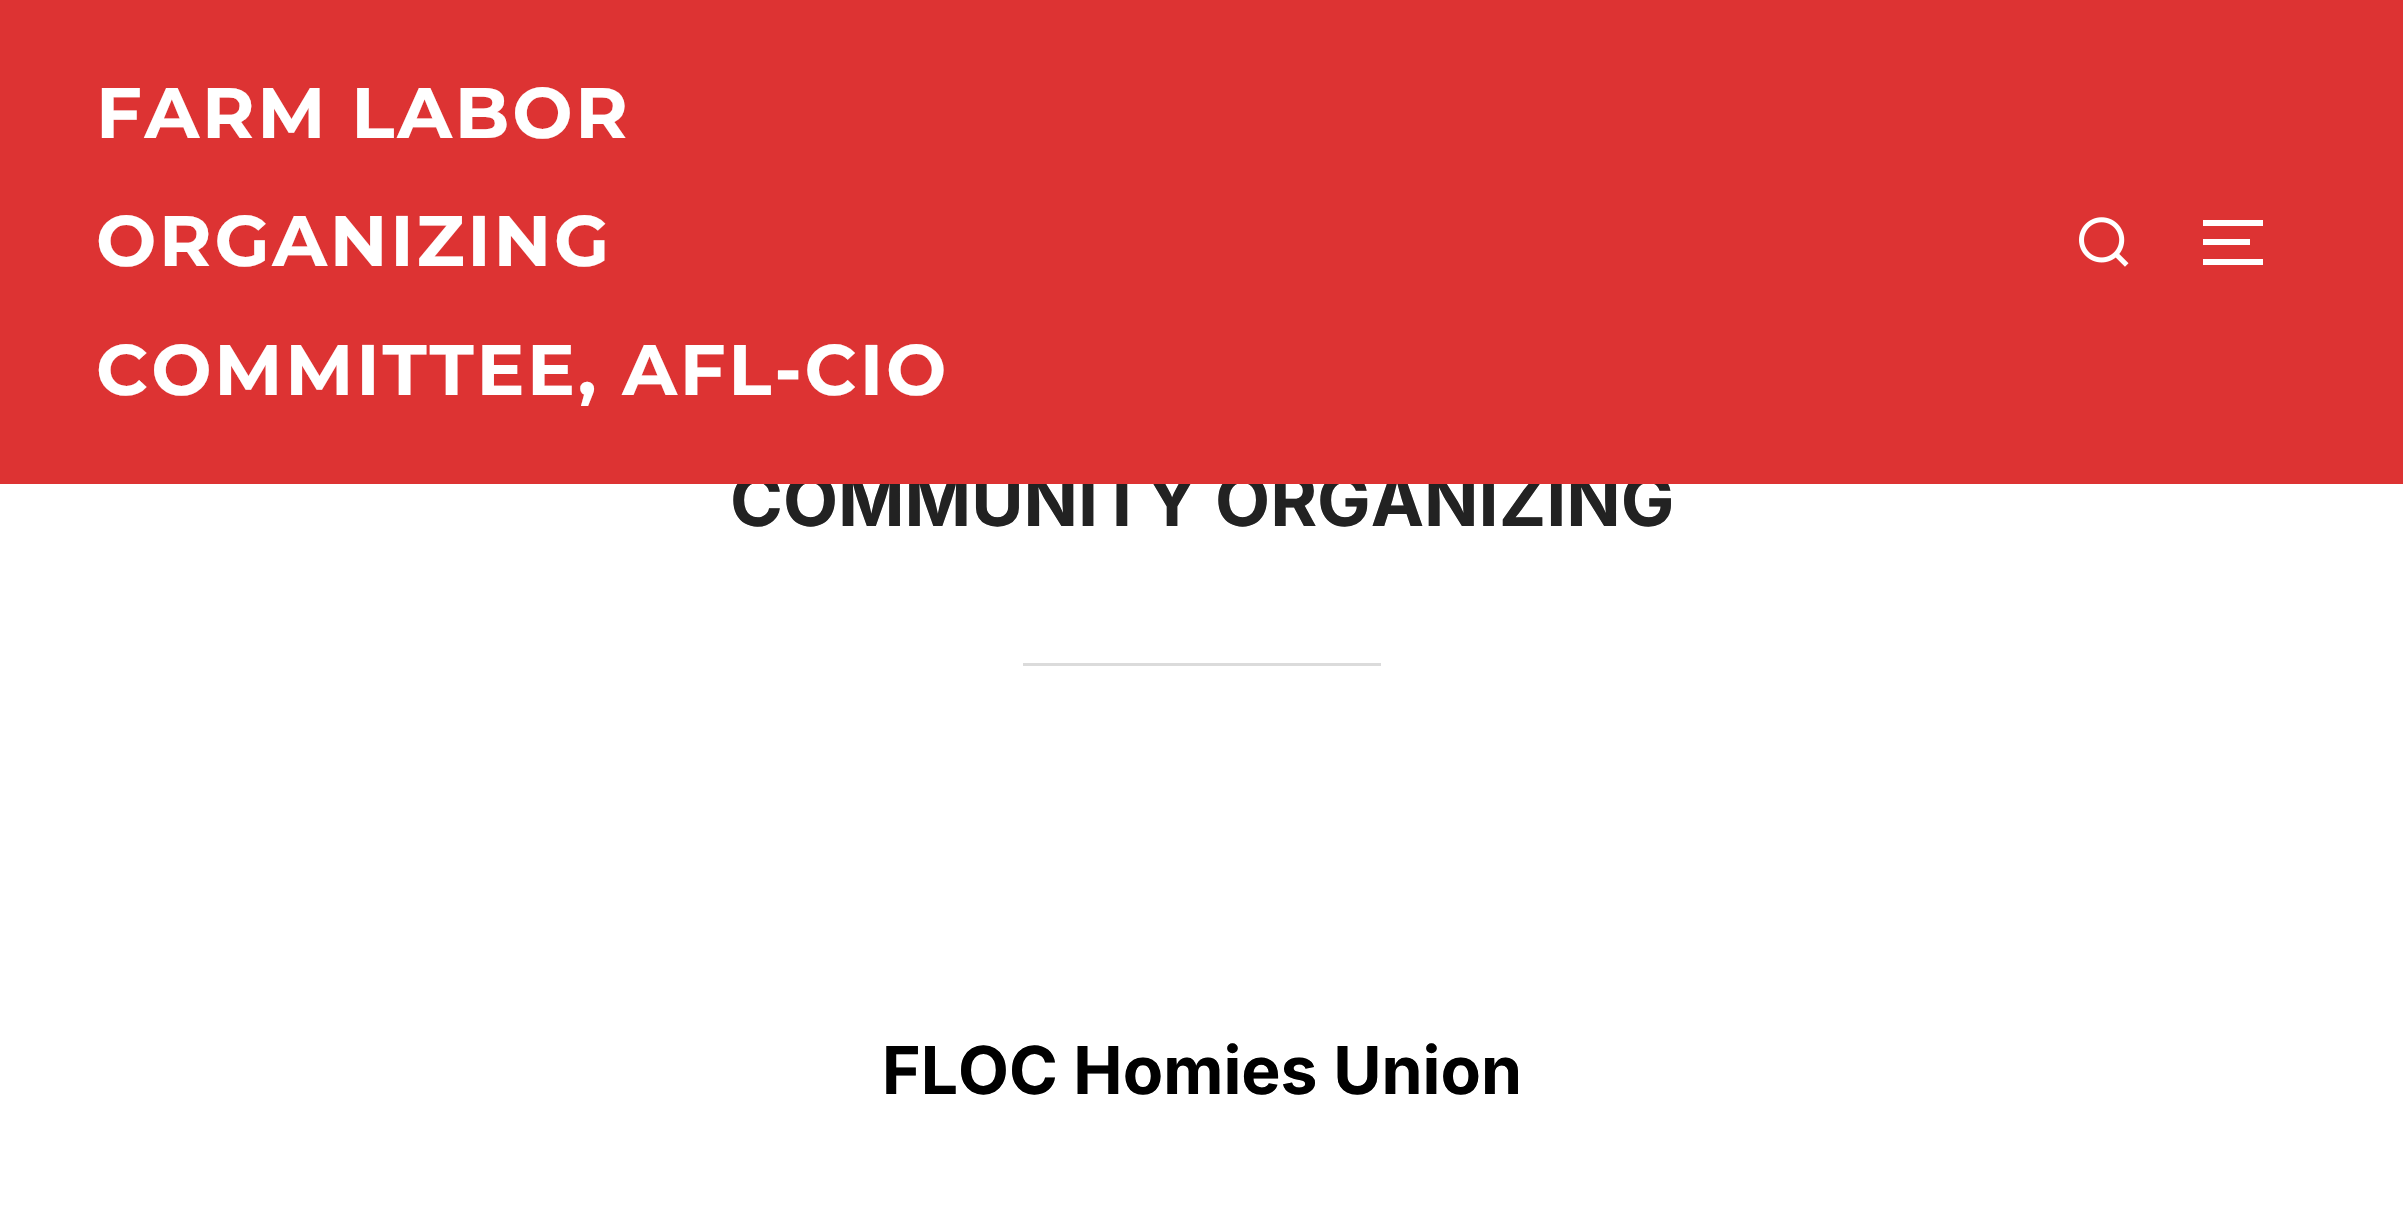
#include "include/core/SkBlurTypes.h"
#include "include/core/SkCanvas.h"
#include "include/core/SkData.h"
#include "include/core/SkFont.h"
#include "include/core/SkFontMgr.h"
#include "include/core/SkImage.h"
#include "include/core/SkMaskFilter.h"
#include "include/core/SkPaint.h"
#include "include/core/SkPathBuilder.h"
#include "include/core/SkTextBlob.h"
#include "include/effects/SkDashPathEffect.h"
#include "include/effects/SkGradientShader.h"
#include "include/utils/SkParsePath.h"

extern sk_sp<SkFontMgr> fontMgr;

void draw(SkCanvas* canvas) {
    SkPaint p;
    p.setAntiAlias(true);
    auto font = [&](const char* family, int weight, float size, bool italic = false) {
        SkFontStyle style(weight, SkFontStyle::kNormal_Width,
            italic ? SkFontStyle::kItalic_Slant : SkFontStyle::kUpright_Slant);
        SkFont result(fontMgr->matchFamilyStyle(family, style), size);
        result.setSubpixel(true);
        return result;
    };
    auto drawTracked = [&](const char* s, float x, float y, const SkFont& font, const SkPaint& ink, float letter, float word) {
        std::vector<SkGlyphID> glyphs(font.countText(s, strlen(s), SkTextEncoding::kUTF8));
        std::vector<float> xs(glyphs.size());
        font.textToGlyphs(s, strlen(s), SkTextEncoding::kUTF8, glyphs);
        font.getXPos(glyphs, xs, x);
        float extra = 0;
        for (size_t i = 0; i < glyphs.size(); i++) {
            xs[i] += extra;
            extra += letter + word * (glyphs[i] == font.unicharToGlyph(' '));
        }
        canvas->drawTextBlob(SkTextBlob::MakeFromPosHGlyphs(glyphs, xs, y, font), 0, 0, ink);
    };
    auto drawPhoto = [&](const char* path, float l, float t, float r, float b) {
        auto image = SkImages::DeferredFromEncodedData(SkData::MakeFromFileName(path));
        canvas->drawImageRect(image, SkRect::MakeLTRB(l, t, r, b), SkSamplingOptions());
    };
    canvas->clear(0xFFFFFFFF);
    auto font1 = font("Inter", 700, 71.5f);
    p.setColor(0xFF222222);
    canvas->drawString("COMMUNITY ORGANIZING", 730, 526, font1, p);
    p.setColor(0xFFDD3333);
    canvas->drawRect(SkRect::MakeLTRB(0, 0, 2403, 484), p);
    auto font2 = font("Montserrat", 700, 71.5f);
    p.setColor(0xFFFFFFFF);
    {
        const struct { const char* s; float x, y; } items[] = {
            {"FARM LABOR", 96, 138},
            {"ORGANIZING", 96, 266},
            {"COMMITTEE, AFL-CIO", 96, 395},
        };
        for (auto [s, x, y] : items) {
            drawTracked(s, x, y, font2, p, 2.75f, 0);
        }
    }
    drawPhoto("media/1.png", 2079, 217, 2129, 267);
    {
        const struct { float l, t, r, b; SkColor color; } items[] = {
            {2203, 220, 2263, 226, 0xFFFFFFFF},
            {2203, 239, 2250, 245, 0xFFFFFFFF},
            {2203, 259, 2263, 265, 0xFFFFFFFF},
            {1023, 663, 1381, 666, 0xFFDBDBDB},
        };
        for (auto [l, t, r, b, color] : items) {
            p.setColor(color);
            canvas->drawRect(SkRect::MakeLTRB(l, t, r, b), p);
        }
    }
    auto font3 = font("Inter", 700, 66);
    p.setColor(0xFF000000);
    canvas->drawString("FLOC Homies Union", 882, 1094, font3, p);
}
